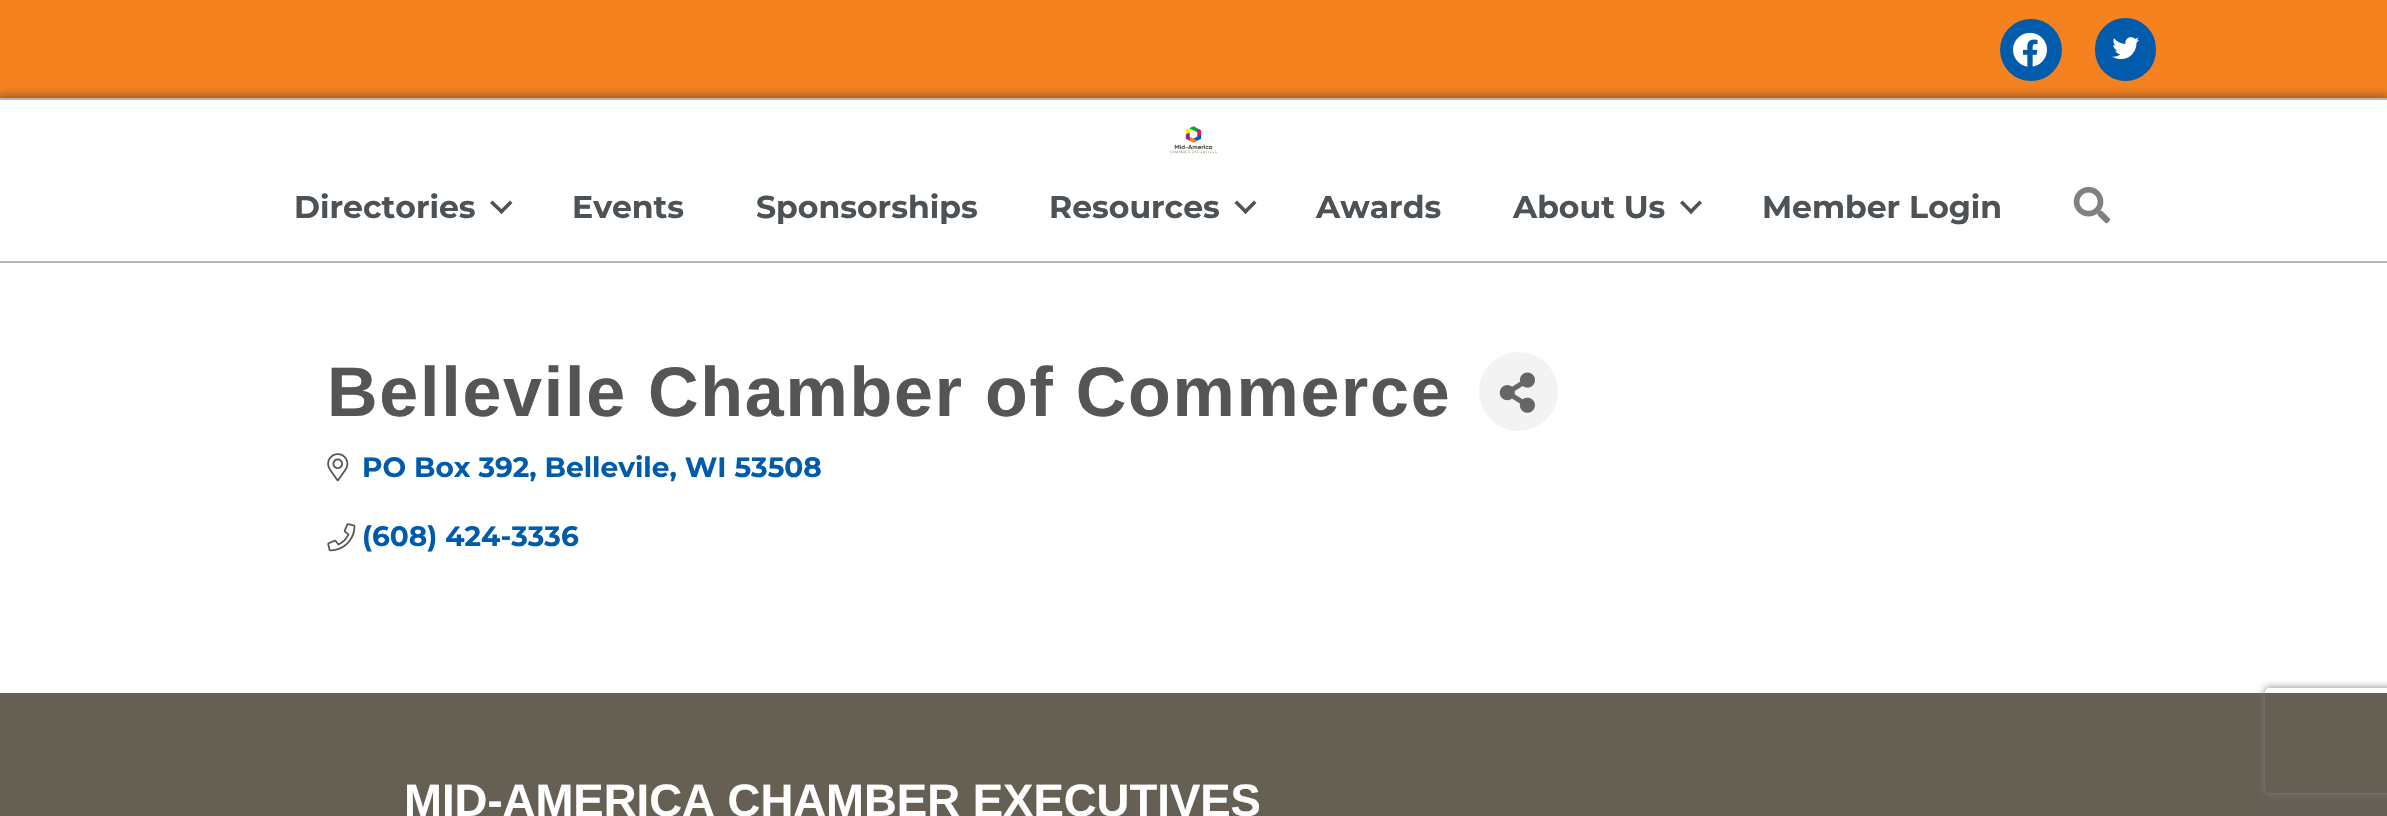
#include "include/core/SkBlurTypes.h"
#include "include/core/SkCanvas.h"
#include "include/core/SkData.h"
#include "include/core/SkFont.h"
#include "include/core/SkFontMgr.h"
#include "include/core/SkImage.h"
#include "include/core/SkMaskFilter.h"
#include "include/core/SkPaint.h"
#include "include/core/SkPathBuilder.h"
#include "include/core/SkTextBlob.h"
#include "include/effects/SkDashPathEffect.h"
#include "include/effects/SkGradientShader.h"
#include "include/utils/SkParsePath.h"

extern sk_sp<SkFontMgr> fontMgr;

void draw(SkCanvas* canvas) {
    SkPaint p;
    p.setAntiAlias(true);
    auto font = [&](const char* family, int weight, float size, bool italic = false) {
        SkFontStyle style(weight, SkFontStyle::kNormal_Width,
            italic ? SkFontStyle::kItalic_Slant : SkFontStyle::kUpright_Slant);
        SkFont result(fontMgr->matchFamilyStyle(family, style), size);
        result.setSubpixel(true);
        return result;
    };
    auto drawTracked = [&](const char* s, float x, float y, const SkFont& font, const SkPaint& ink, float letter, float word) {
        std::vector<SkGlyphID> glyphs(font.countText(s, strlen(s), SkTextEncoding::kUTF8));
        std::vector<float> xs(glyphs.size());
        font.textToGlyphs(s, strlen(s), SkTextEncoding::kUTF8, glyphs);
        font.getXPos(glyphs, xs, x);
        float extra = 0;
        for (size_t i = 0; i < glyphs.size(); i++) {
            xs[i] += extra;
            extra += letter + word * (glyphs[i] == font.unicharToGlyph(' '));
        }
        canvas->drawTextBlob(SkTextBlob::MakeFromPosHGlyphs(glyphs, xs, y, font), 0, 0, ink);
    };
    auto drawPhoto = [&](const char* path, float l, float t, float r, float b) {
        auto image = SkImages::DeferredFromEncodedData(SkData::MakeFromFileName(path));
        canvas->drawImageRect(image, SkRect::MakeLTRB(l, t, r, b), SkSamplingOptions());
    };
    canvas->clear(0xFFF5811F);
    p.setColor(0xFF005BAB);
    canvas->drawCircle(2031, 50, 31, p);
    drawPhoto("media/1.png", 2013, 32, 2047, 67);
    canvas->drawRoundRect(SkRect::MakeLTRB(2095, 18, 2156, 81), 30.5f, 30.5f, p);
    drawPhoto("media/2.png", 2112, 37, 2139, 60);
    p.setColor(0x6E001524);
    p.setMaskFilter(SkMaskFilter::MakeBlur(kNormal_SkBlurStyle, 5));
    canvas->drawRect(SkRect::MakeLTRB(-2, 96, 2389, 264), p);
    p.setMaskFilter(nullptr);
    {
        const struct { float l, t, r, b; SkColor color; } items[] = {
            {0, 100, 2387, 261, 0xFFFFFFFF},
            {0, 98, 2387, 100, 0xFFB0B6BB},
            {0, 261, 2387, 263, 0xFFB0B6BB},
        };
        for (auto [l, t, r, b, color] : items) {
            p.setColor(color);
            canvas->drawRect(SkRect::MakeLTRB(l, t, r, b), p);
        }
    }
    drawPhoto("media/3.png", 1170, 126, 1217, 154);
    auto font1 = font("Montserrat", 700, 31.5f);
    p.setColor(0xFF4C5256);
    canvas->drawString("Directories", 294, 218, font1, p);
    canvas->drawPath(SkPathBuilder().moveTo(510, 200.5f).lineTo(512.5f, 203).lineTo(501.5f, 214).lineTo(499, 211.5f).close().detach(), p);
    canvas->drawPath(SkPathBuilder().moveTo(492.5f, 200.5f).lineTo(504, 211.5f).lineTo(501.5f, 214).lineTo(490, 203).close().detach(), p);
    {
        const struct { const char* s; float x, y; } items[] = {
            {"Events", 572, 218},
            {"Sponsorships", 756, 218},
            {"Resources", 1049, 218},
        };
        for (auto [s, x, y] : items) {
            canvas->drawString(s, x, y, font1, p);
        }
    }
    canvas->drawPath(SkPathBuilder().moveTo(1254, 200.5f).lineTo(1256.5f, 203).lineTo(1245.5f, 214).lineTo(1243, 211.5f).close().detach(), p);
    canvas->drawPath(SkPathBuilder().moveTo(1237, 200.5f).lineTo(1248, 211.5f).lineTo(1245.5f, 214).lineTo(1234.5f, 203).close().detach(), p);
    canvas->drawString("Awards", 1316, 218, font1, p);
    canvas->drawString("About Us", 1513, 218, font1, p);
    canvas->drawPath(SkPathBuilder().moveTo(1699.5f, 200.5f).lineTo(1702, 203).lineTo(1691, 214).lineTo(1688.5f, 211.5f).close().detach(), p);
    canvas->drawPath(SkPathBuilder().moveTo(1682.5f, 200.5f).lineTo(1693.5f, 211.5f).lineTo(1691, 214).lineTo(1680, 203).close().detach(), p);
    canvas->drawString("Member Login", 1762, 218, font1, p);
    drawPhoto("media/4.png", 2073, 186, 2111, 224);
    p.setColor(0xFFFFFFFF);
    canvas->drawRect(SkRect::MakeLTRB(0, 263, 2387, 693), p);
    auto font2 = font("Liberation Sans", 700, 70);
    p.setColor(0xFF555555);
    drawTracked("Bellevile Chamber of Commerce", 327, 416, font2, p, 1.75f, 0);
    p.setColor(0xFFF3F3F3);
    canvas->drawCircle(1518.5f, 391.5f, 39.5f, p);
    drawPhoto("media/5.png", 1499, 372, 1535, 413);
    drawPhoto("media/6.png", 327, 453, 349, 482);
    auto font3 = font("Montserrat", 700, 28);
    p.setColor(0xFF005BAB);
    canvas->drawString("PO Box 392, Bellevile, WI 53508", 362, 477, font3, p);
    drawPhoto("media/7.png", 327, 523, 356, 552);
    canvas->drawString("(608) 424-3336", 362, 546, font3, p);
    p.setColor(0xFF655F54);
    canvas->drawRect(SkRect::MakeLTRB(0, 693, 2387, 816), p);
    auto font4 = font("Liberation Sans", 700, 45.5f);
    p.setColor(0xFFFFFFFF);
    canvas->drawString("MID-AMERICA CHAMBER EXECUTIVES", 404, 816, font4, p);
    canvas->save();
    canvas->clipPath(SkPathBuilder(SkPathFillType::kEvenOdd).moveTo(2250, 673).lineTo(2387, 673).lineTo(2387, 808).lineTo(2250, 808).close().moveTo(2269, 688).lineTo(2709, 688).cubicTo(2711, 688, 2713, 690, 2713, 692).lineTo(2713, 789).cubicTo(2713, 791, 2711, 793, 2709, 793).lineTo(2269, 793).cubicTo(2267, 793, 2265, 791, 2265, 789).lineTo(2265, 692).cubicTo(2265, 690, 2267, 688, 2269, 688).close().detach(), true);
    p.setColor(0xFF808080);
    p.setMaskFilter(SkMaskFilter::MakeBlur(kNormal_SkBlurStyle, 4.5f));
    canvas->drawRoundRect(SkRect::MakeLTRB(2265, 688, 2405, 793), 4, 4, p);
    p.setMaskFilter(nullptr);
    canvas->restore();
}
